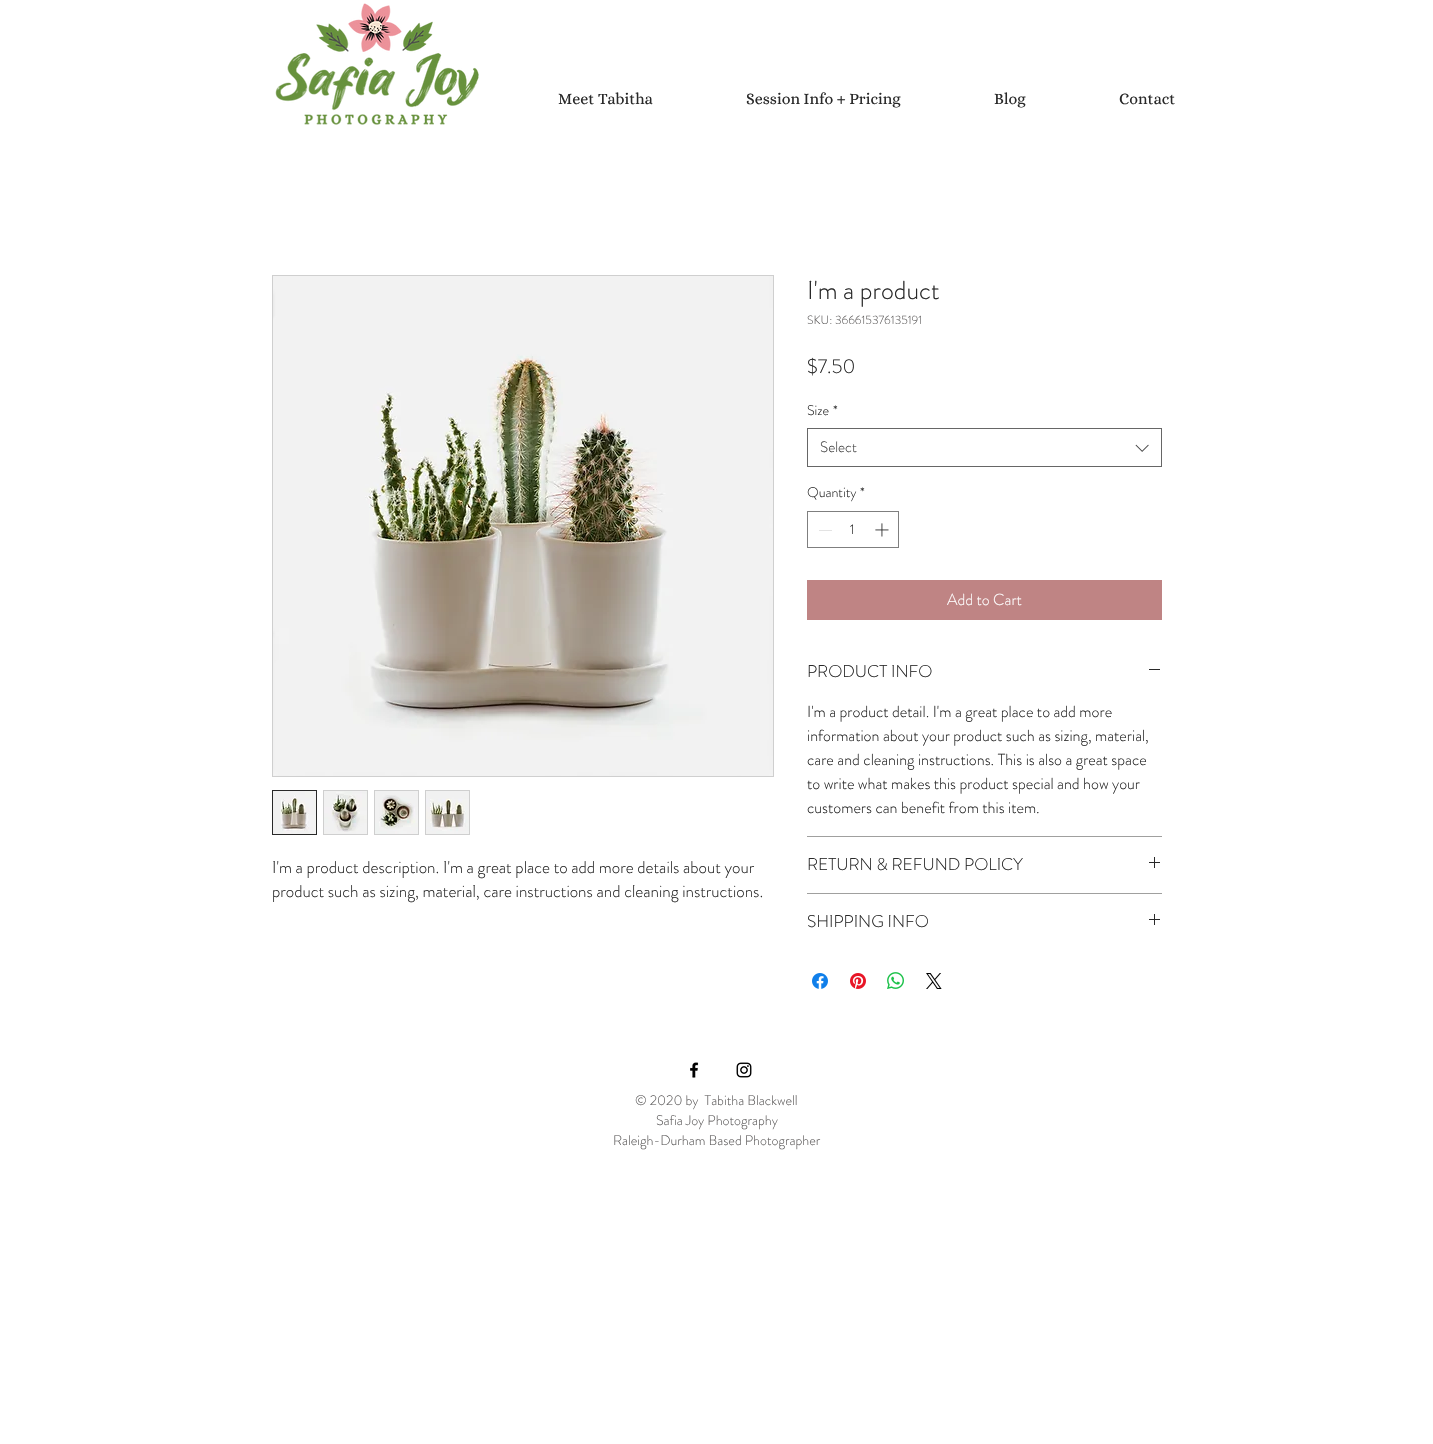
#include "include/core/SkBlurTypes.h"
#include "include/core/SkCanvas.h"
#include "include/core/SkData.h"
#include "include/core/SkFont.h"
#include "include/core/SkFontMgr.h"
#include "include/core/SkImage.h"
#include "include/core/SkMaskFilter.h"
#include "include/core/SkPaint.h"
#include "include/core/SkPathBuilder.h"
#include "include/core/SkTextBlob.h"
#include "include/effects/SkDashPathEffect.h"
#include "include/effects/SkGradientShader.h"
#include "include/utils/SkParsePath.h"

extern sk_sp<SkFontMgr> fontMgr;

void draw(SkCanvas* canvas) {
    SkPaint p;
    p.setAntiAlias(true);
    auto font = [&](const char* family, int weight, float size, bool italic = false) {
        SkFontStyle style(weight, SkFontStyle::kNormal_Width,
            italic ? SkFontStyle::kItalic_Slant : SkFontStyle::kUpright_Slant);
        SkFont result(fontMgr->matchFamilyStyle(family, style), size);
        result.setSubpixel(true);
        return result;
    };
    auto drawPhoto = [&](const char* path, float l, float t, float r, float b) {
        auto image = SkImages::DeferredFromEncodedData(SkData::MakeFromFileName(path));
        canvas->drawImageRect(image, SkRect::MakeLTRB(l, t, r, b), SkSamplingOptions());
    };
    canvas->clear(0xFFFFFFFF);
    drawPhoto("media/1.png", 275, 3, 479, 125);
    auto font1 = font("Alice", 400, 16);
    p.setColor(0xFF292929);
    {
        const struct { const char* s; float x, y; } items[] = {
            {"Meet Tabitha", 558, 104},
            {"Session Info + Pricing", 746, 104},
            {"Blog", 994, 104},
            {"Contact", 1119, 104},
        };
        for (auto [s, x, y] : items) {
            canvas->drawString(s, x, y, font1, p);
        }
    }
    p.setStyle(SkPaint::kStroke_Style);
    p.setStrokeWidth(1);
    p.setColor(0xFFCFCFCF);
    canvas->drawRect(SkRect::MakeLTRB(272.5f, 275.5f, 773.5f, 776.5f), p);
    drawPhoto("media/2.png", 273, 276, 773, 776);
    p.setColor(0xFF292929);
    canvas->drawRect(SkRect::MakeLTRB(272.5f, 790.5f, 316.5f, 834.5f), p);
    drawPhoto("media/3.png", 273, 791, 316, 834);
    p.setStyle(SkPaint::kFill_Style);
    p.setColor(0xFFCFCFCF);
    canvas->drawRect(SkRect::MakeLTRB(323, 790, 368, 835), p);
    drawPhoto("media/4.png", 324, 791, 367, 834);
    canvas->drawRect(SkRect::MakeLTRB(374, 790, 419, 835), p);
    drawPhoto("media/5.png", 375, 791, 418, 834);
    canvas->drawRect(SkRect::MakeLTRB(425, 790, 470, 835), p);
    drawPhoto("media/6.png", 426, 791, 469, 834);
    auto font2 = font("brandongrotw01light", 300, 17);
    p.setColor(0xFF292929);
    canvas->drawString("I'm a product description. I'm a great place to add more details about your", 272, 873, font2, p);
    canvas->drawString("product such as sizing, material, care instructions and cleaning instructions.", 272, 897, font2, p);
    auto font3 = font("brandongrotw01light", 300, 26);
    canvas->drawString("I'm a product", 807, 299, font3, p);
    auto font4 = font("brandongrotw01light", 300, 12);
    p.setColor(0xFF605E5E);
    canvas->drawString("SKU: 366615376135191", 807, 324, font4, p);
    auto font5 = font("brandongrotw01light", 300, 20);
    p.setColor(0xFF292929);
    canvas->drawString("$7.50", 807, 373, font5, p);
    auto font6 = font("brandongrotw01light", 300, 14);
    canvas->drawString("Size", 807, 415, font6, p);
    canvas->drawString("*", 833, 415, font6, p);
    p.setStyle(SkPaint::kStroke_Style);
    p.setColor(0xFF666666);
    canvas->drawRect(SkRect::MakeLTRB(807.5f, 428.5f, 1161.5f, 466.5f), p);
    auto font7 = font("brandongrotw01light", 300, 15);
    p.setStyle(SkPaint::kFill_Style);
    p.setColor(0xFF444444);
    canvas->drawString("Select", 820, 452, font7, p);
    drawPhoto("media/7.png", 1135, 444, 1149, 452);
    p.setColor(0xFF292929);
    canvas->drawString("Quantity", 807, 497, font6, p);
    canvas->drawString("*", 860, 497, font6, p);
    p.setStyle(SkPaint::kStroke_Style);
    p.setColor(0xFF7F7F7F);
    canvas->drawRect(SkRect::MakeLTRB(807.5f, 511.5f, 898.5f, 547.5f), p);
    p.setStyle(SkPaint::kFill_Style);
    p.setColor(0xFFE3E3E3);
    canvas->drawRect(SkRect::MakeLTRB(819, 530, 832, 531), p);
    p.setColor(0xFF292929);
    canvas->drawString("1", 850, 534, font6, p);
    drawPhoto("media/8.png", 875, 523, 889, 537);
    p.setColor(0xFFBF8484);
    canvas->drawRect(SkRect::MakeLTRB(807, 580, 1162, 620), p);
    auto font8 = font("brandongrotw01light", 300, 16);
    p.setColor(0xFFFFFFFF);
    canvas->drawString("Add to Cart", 947, 605, font8, p);
    p.setColor(0xFFA0A09F);
    canvas->drawRect(SkRect::MakeLTRB(807, 836, 1162, 837), p);
    p.setColor(0xFF292929);
    canvas->drawString("PRODUCT INFO", 807, 677, font2, p);
    canvas->drawRect(SkRect::MakeLTRB(1149, 669, 1160, 670), p);
    {
        const struct { const char* s; float x, y; } items[] = {
            {"I'm a product detail. I'm a great place to add more", 807, 717},
            {"information about your product such as sizing, material,", 807, 741},
            {"care and cleaning instructions. This is also a great space", 807, 765},
            {"to write what makes this product special and how your", 807, 789},
            {"customers can benefit from this item.", 807, 813},
        };
        for (auto [s, x, y] : items) {
            canvas->drawString(s, x, y, font8, p);
        }
    }
    p.setColor(0xFFA0A09F);
    canvas->drawRect(SkRect::MakeLTRB(807, 893, 1162, 894), p);
    p.setColor(0xFF292929);
    canvas->drawString("RETURN & REFUND POLICY", 807, 870, font2, p);
    drawPhoto("media/9.png", 1149, 857, 1160, 868);
    canvas->drawString("SHIPPING INFO", 807, 927, font2, p);
    drawPhoto("media/9.png", 1149, 914, 1160, 925);
    drawPhoto("media/10.png", 812, 973, 828, 989);
    drawPhoto("media/11.png", 850, 973, 866, 989);
    drawPhoto("media/12.png", 887, 972, 904, 989);
    drawPhoto("media/13.png", 926, 973, 942, 989);
    drawPhoto("media/14.png", 690, 1062, 699, 1078);
    drawPhoto("media/15.png", 736, 1062, 752, 1078);
    p.setColor(0xFF605E5E);
    {
        const struct { const char* s; float x, y; } items[] = {
            {"© 2020 by  Tabitha Blackwell", 635, 1105},
            {"Safia Joy Photography", 656, 1125},
            {"Raleigh-Durham Based Photographer", 613, 1145},
        };
        for (auto [s, x, y] : items) {
            canvas->drawString(s, x, y, font6, p);
        }
    }
}
